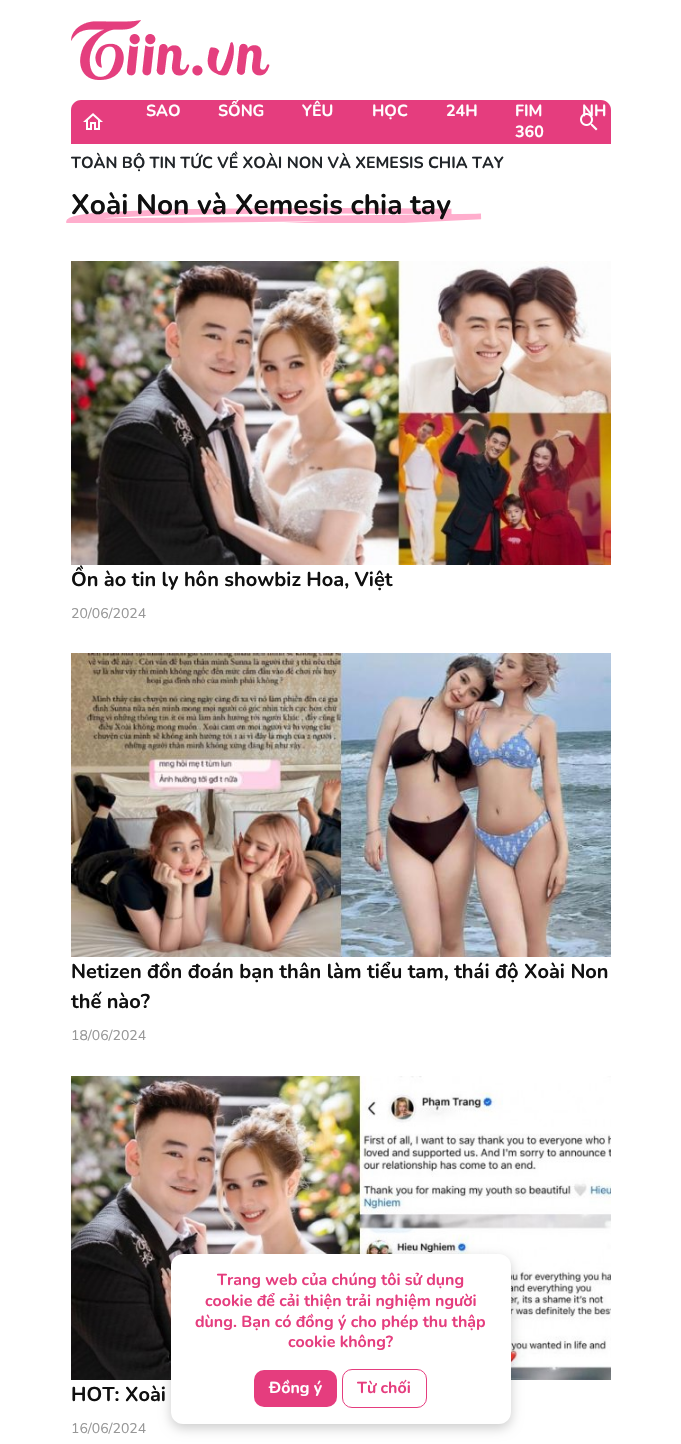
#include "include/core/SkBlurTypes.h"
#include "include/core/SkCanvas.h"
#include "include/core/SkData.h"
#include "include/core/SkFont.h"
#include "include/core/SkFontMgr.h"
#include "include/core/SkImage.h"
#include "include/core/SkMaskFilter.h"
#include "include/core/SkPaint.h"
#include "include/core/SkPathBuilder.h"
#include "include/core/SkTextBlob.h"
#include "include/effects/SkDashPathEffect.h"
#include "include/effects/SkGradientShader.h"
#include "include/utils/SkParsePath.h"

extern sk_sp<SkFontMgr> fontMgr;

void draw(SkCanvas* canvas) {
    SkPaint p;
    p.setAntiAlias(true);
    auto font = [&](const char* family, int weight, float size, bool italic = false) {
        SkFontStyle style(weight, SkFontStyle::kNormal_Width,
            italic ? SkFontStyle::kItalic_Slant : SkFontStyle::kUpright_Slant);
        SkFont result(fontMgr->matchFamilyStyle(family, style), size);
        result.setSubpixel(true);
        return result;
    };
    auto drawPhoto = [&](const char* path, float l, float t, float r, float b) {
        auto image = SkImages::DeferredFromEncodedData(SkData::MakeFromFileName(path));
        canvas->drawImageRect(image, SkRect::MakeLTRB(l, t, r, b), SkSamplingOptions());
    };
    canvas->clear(0xFFFFFFFF);
    drawPhoto("media/1.png", 71, 20, 270, 80);
    p.setColor(0xFFE53D7E);
    canvas->drawPath(SkPathBuilder().moveTo(81, 100).lineTo(601, 100).cubicTo(606.5f, 100, 611, 104.5f, 611, 110).lineTo(611, 144).lineTo(71, 144).lineTo(71, 110).cubicTo(71, 104.5f, 75.5f, 100, 81, 100).close().detach(), p);
    drawPhoto("media/2.png", 83, 113, 103, 130);
    auto font1 = font("Nunito", 700, 16);
    p.setColor(0xFFFFFFFF);
    {
        const struct { const char* s; float x, y; } items[] = {
            {"SAO", 146, 116},
            {"SỐNG", 218, 116},
            {"YÊU", 302, 116},
            {"HỌC", 372, 116},
            {"24H", 446, 116},
            {"FIM", 515, 116},
            {"360", 515, 137},
            {"NH", 582, 116},
        };
        for (auto [s, x, y] : items) {
            canvas->drawString(s, x, y, font1, p);
        }
    }
    drawPhoto("media/3.png", 580, 113, 598, 131);
    p.setColor(0xFF212529);
    canvas->drawString("TOÀN BỘ TIN TỨC VỀ XOÀI NON VÀ XEMESIS CHIA TAY", 71, 168, font1, p);
    canvas->save();
    canvas->clipRect(SkRect::MakeLTRB(65, 207, 482, 223));
    p.setStyle(SkPaint::kStroke_Style);
    p.setStrokeWidth(5.7f);
    p.setColor(0xFFFFAECD);
    canvas->drawPath(SkPathBuilder().moveTo(451.5f, 211.5f).cubicTo(323.5f, 210, 68, 210, 69, 221.5f).lineTo(481, 216.5f).lineTo(122.5f, 233.5f).detach(), p);
    canvas->restore();
    auto font2 = font("Nunito", 700, 28);
    p.setStyle(SkPaint::kFill_Style);
    p.setColor(0xFF101010);
    canvas->drawString("Xoài Non và Xemesis chia tay", 71, 214, font2, p);
    drawPhoto("media/4.png", 71, 261, 611, 565);
    auto font3 = font("Nunito", 700, 20);
    canvas->drawString("Ồn ào tin ly hôn showbiz Hoa, Việt", 71, 586, font3, p);
    auto font4 = font("Nunito", 400, 14);
    p.setColor(0xFF979797);
    canvas->drawString("20/06/2024", 71, 618, font4, p);
    drawPhoto("media/5.png", 71, 653, 611, 957);
    p.setColor(0xFF101010);
    canvas->drawString("Netizen đồn đoán bạn thân làm tiểu tam, thái độ Xoài Non", 71, 978, font3, p);
    canvas->drawString("thế nào?", 71, 1008, font3, p);
    p.setColor(0xFF979797);
    canvas->drawString("18/06/2024", 71, 1040, font4, p);
    drawPhoto("media/6.png", 71, 1076, 611, 1380);
    p.setColor(0xFF101010);
    canvas->drawString("HOT: Xoài", 71, 1401, font3, p);
    p.setColor(0xFF979797);
    canvas->drawString("16/06/2024", 71, 1433, font4, p);
    p.setColor(0x33000000);
    p.setMaskFilter(SkMaskFilter::MakeBlur(kNormal_SkBlurStyle, 6));
    canvas->drawRoundRect(SkRect::MakeLTRB(171, 1258, 511, 1428), 12, 12, p);
    p.setMaskFilter(nullptr);
    p.setColor(0xFFFFFFFF);
    canvas->drawRoundRect(SkRect::MakeLTRB(171, 1254, 511, 1424), 12, 12, p);
    p.setColor(0xFFE53D7E);
    {
        const struct { const char* s; float x, y; } items[] = {
            {"Trang web của chúng tôi sử dụng", 217, 1285},
            {"cookie để cải thiện trải nghiệm người", 205, 1306},
            {"dùng. Bạn có đồng ý cho phép thu thập", 195, 1327},
            {"cookie không?", 288, 1347},
        };
        for (auto [s, x, y] : items) {
            canvas->drawString(s, x, y, font1, p);
        }
    }
    canvas->drawRoundRect(SkRect::MakeLTRB(254, 1370, 337, 1407), 10, 10, p);
    p.setColor(0xFFFFFFFF);
    canvas->drawString("Đồng ý", 269, 1393, font1, p);
    p.setStyle(SkPaint::kStroke_Style);
    p.setStrokeWidth(1);
    p.setColor(0xFFE53D7E);
    canvas->drawRoundRect(SkRect::MakeLTRB(342.5f, 1369.5f, 426.5f, 1407.5f), 9.5f, 9.5f, p);
    p.setStyle(SkPaint::kFill_Style);
    canvas->drawString("Từ chối", 357, 1393, font1, p);
}
